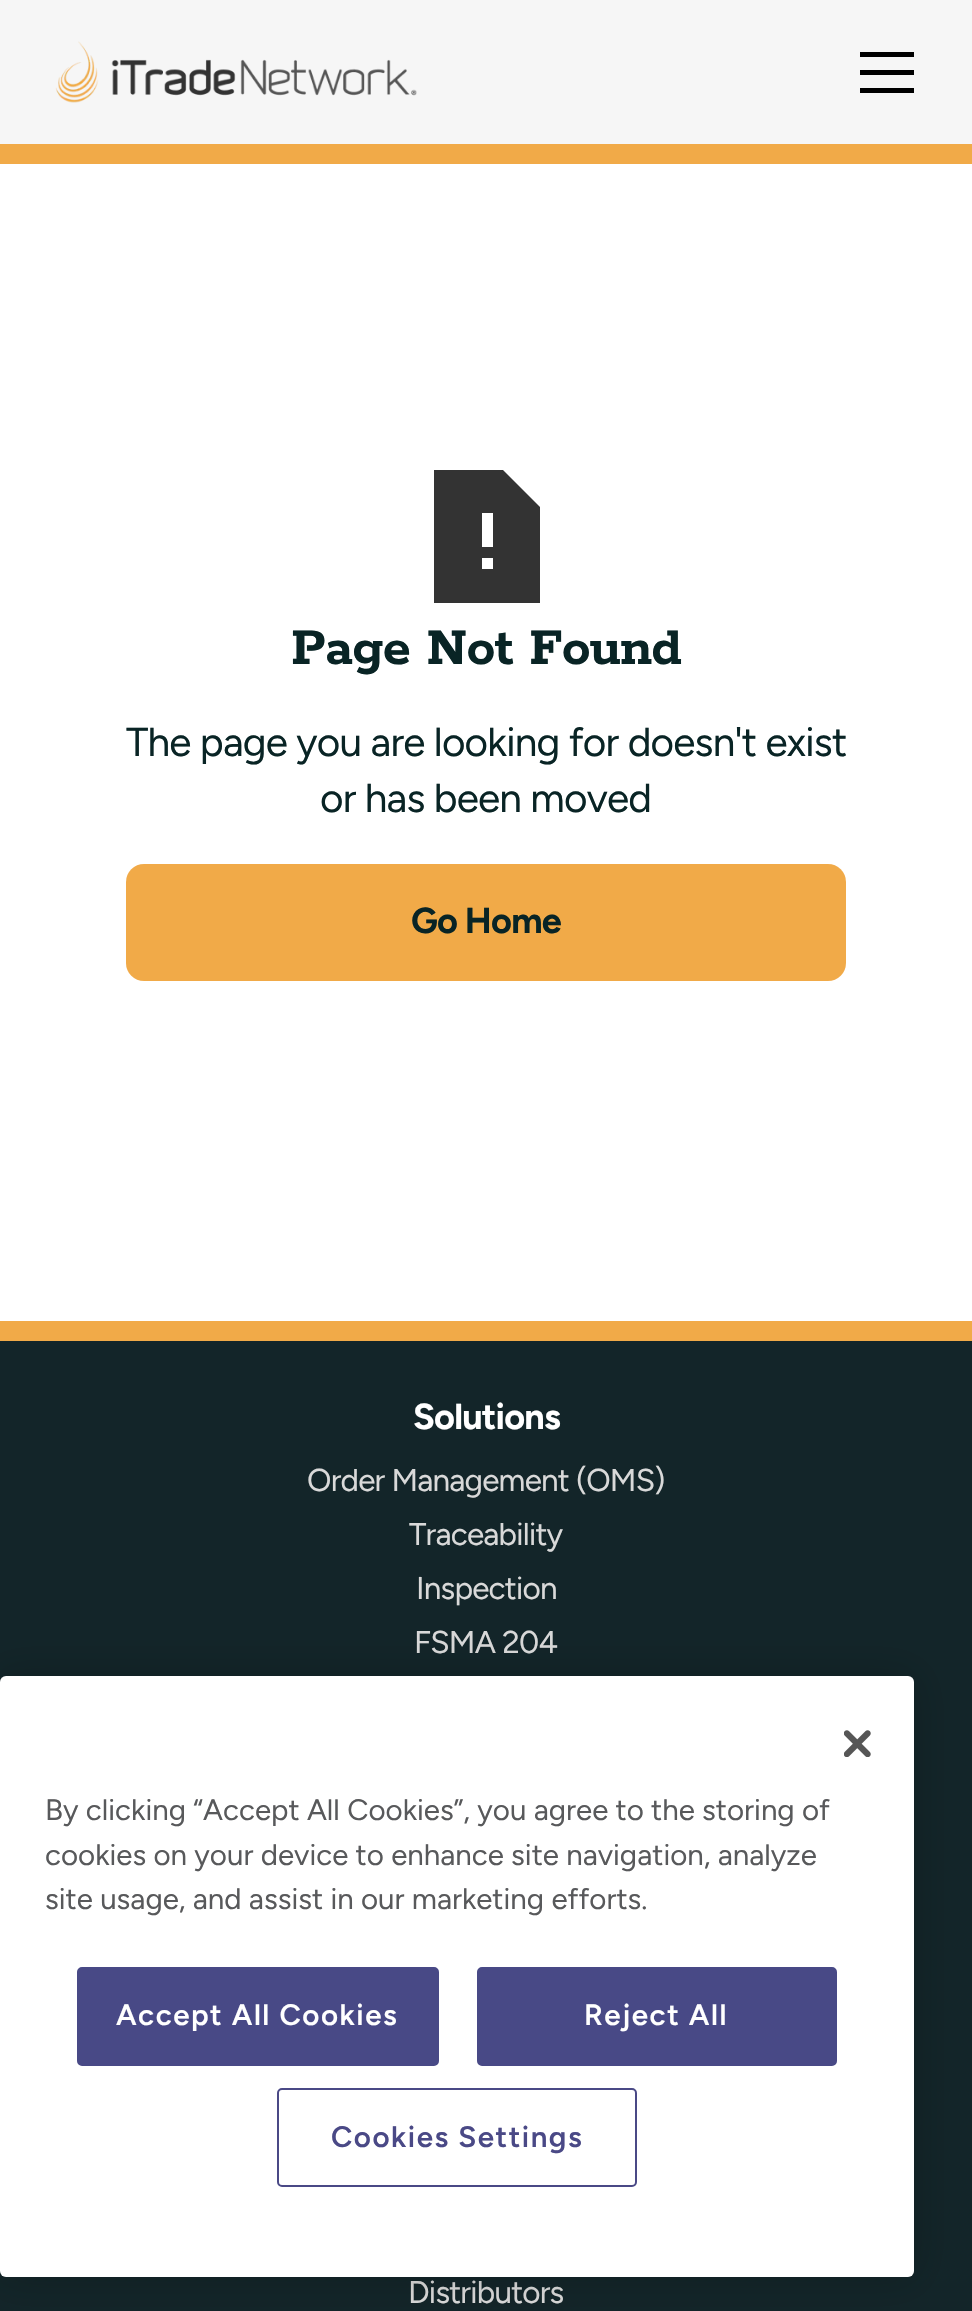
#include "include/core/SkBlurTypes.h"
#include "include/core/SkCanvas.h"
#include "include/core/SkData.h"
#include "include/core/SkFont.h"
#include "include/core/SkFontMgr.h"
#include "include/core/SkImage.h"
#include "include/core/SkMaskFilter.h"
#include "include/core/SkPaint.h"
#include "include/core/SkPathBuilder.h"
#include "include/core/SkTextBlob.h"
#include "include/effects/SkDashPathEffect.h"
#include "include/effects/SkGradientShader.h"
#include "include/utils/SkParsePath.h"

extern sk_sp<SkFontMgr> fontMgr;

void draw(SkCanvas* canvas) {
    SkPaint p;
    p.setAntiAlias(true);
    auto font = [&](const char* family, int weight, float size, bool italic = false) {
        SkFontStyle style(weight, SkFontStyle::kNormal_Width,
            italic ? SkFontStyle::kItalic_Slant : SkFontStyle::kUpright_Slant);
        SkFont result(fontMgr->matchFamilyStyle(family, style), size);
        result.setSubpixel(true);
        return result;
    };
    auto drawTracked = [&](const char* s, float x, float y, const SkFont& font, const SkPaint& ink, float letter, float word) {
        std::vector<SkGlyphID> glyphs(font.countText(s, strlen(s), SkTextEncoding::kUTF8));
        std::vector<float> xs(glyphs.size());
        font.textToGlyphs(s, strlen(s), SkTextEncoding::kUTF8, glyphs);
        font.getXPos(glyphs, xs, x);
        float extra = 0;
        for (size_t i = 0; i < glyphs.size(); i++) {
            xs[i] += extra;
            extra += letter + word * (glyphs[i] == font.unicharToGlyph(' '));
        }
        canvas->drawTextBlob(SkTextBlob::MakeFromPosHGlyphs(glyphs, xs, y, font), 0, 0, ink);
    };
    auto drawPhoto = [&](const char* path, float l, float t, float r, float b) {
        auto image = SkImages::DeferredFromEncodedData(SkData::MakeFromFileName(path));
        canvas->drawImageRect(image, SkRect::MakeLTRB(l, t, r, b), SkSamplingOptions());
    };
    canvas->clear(0xFFFFFFFF);
    p.setColor(0xFFF1AA48);
    canvas->drawRect(SkRect::MakeLTRB(0, 144, 972, 164), p);
    p.setColor(0xFFF6F6F6);
    canvas->drawRect(SkRect::MakeLTRB(0, 0, 972, 144), p);
    drawPhoto("media/1.png", 55, 41, 417, 103);
    {
        const struct { float l, t, r, b; SkColor color; } items[] = {
            {860, 52, 914, 57, 0xFF000000},
            {860, 70, 914, 75, 0xFF000000},
            {860, 88, 914, 93, 0xFF000000},
        };
        for (auto [l, t, r, b, color] : items) {
            p.setColor(color);
            canvas->drawRect(SkRect::MakeLTRB(l, t, r, b), p);
        }
    }
    p.setColor(0xFF333333);
    canvas->drawPath(SkPathBuilder(SkPathFillType::kEvenOdd).moveTo(434, 470).lineTo(503, 470).lineTo(540, 507).lineTo(540, 603).lineTo(434, 603).close().moveTo(482, 513).lineTo(493, 513).lineTo(493, 547).lineTo(482, 547).close().moveTo(482, 558).lineTo(493, 558).lineTo(493, 569).lineTo(482, 569).close().detach(), p);
    auto font1 = font("Rokkitt", 700, 57.5f);
    p.setColor(0xFF092425);
    drawTracked("Page Not Found", 291, 664, font1, p, -0.8f, 0);
    auto font2 = font("Figtree", 400, 40.5f);
    drawTracked("The page you are looking for doesn't exist", 126, 756, font2, p, -0.8f, 0);
    drawTracked("or has been moved", 320, 812, font2, p, -0.8f, 0);
    p.setColor(0xFFF1AA48);
    canvas->drawRoundRect(SkRect::MakeLTRB(126, 864, 846, 981), 18, 18, p);
    auto font3 = font("Figtree", 700, 36);
    p.setColor(0xFF092425);
    drawTracked("Go Home", 411, 933, font3, p, -0.8f, 0);
    p.setColor(0xFF132529);
    canvas->drawRect(SkRect::MakeLTRB(0, 1341, 972, 2311), p);
    p.setColor(0xFFF1AA48);
    canvas->drawRect(SkRect::MakeLTRB(0, 1321, 972, 1341), p);
    p.setColor(0xFFFFFFFF);
    drawTracked("Solutions", 413, 1429, font3, p, -0.8f, 0);
    auto font4 = font("Figtree", 400, 31.5f);
    p.setColor(0xFFD9D9D9);
    {
        const struct { const char* s; float x, y; } items[] = {
            {"Order Management (OMS)", 307, 1491},
            {"Traceability", 409, 1545},
            {"Inspection", 416, 1599},
            {"FSMA 204", 414, 1653},
            {"Distributors", 408, 2303},
        };
        for (auto [s, x, y] : items) {
            drawTracked(s, x, y, font4, p, -0.8f, 0);
        }
    }
    p.setColor(0x33000000);
    p.setMaskFilter(SkMaskFilter::MakeBlur(kNormal_SkBlurStyle, 20));
    canvas->drawRoundRect(SkRect::MakeLTRB(0, 1676, 914, 2277), 6, 6, p);
    p.setMaskFilter(nullptr);
    p.setColor(0xFFFFFFFF);
    canvas->drawRoundRect(SkRect::MakeLTRB(0, 1676, 914, 2277), 6, 6, p);
    drawPhoto("media/2.png", 844, 1730, 871, 1757);
    auto font5 = font("Figtree", 400, 29.5f);
    p.setColor(0xFF58595B);
    {
        const struct { const char* s; float x, y; } items[] = {
            {"By clicking “Accept All Cookies”, you agree to the storing of", 45, 1820},
            {"cookies on your device to enhance site navigation, analyze", 45, 1865},
            {"site usage, and assist in our marketing efforts.", 45, 1909},
        };
        for (auto [s, x, y] : items) {
            canvas->drawString(s, x, y, font5, p);
        }
    }
    p.setColor(0xFF484986);
    canvas->drawRoundRect(SkRect::MakeLTRB(78, 1968, 438, 2065), 4, 4, p);
    p.setStyle(SkPaint::kStroke_Style);
    p.setStrokeWidth(2);
    canvas->drawRoundRect(SkRect::MakeLTRB(78, 1968, 438, 2065), 4, 4, p);
    auto font6 = font("Figtree", 600, 29.5f);
    p.setStyle(SkPaint::kFill_Style);
    p.setColor(0xFFFFFFFF);
    drawTracked("Accept All Cookies", 116, 2025, font6, p, 1.5f, 0);
    p.setColor(0xFF484986);
    canvas->drawRoundRect(SkRect::MakeLTRB(478, 1968, 836, 2065), 4, 4, p);
    p.setStyle(SkPaint::kStroke_Style);
    canvas->drawRoundRect(SkRect::MakeLTRB(478, 1968, 836, 2065), 4, 4, p);
    p.setStyle(SkPaint::kFill_Style);
    p.setColor(0xFFFFFFFF);
    drawTracked("Reject All", 584, 2025, font6, p, 1.5f, 0);
    p.setStyle(SkPaint::kStroke_Style);
    p.setColor(0xFF4A4986);
    canvas->drawRoundRect(SkRect::MakeLTRB(278, 2089, 636, 2186), 4, 4, p);
    p.setStyle(SkPaint::kFill_Style);
    drawTracked("Cookies Settings", 331, 2147, font6, p, 1.5f, 0);
}
